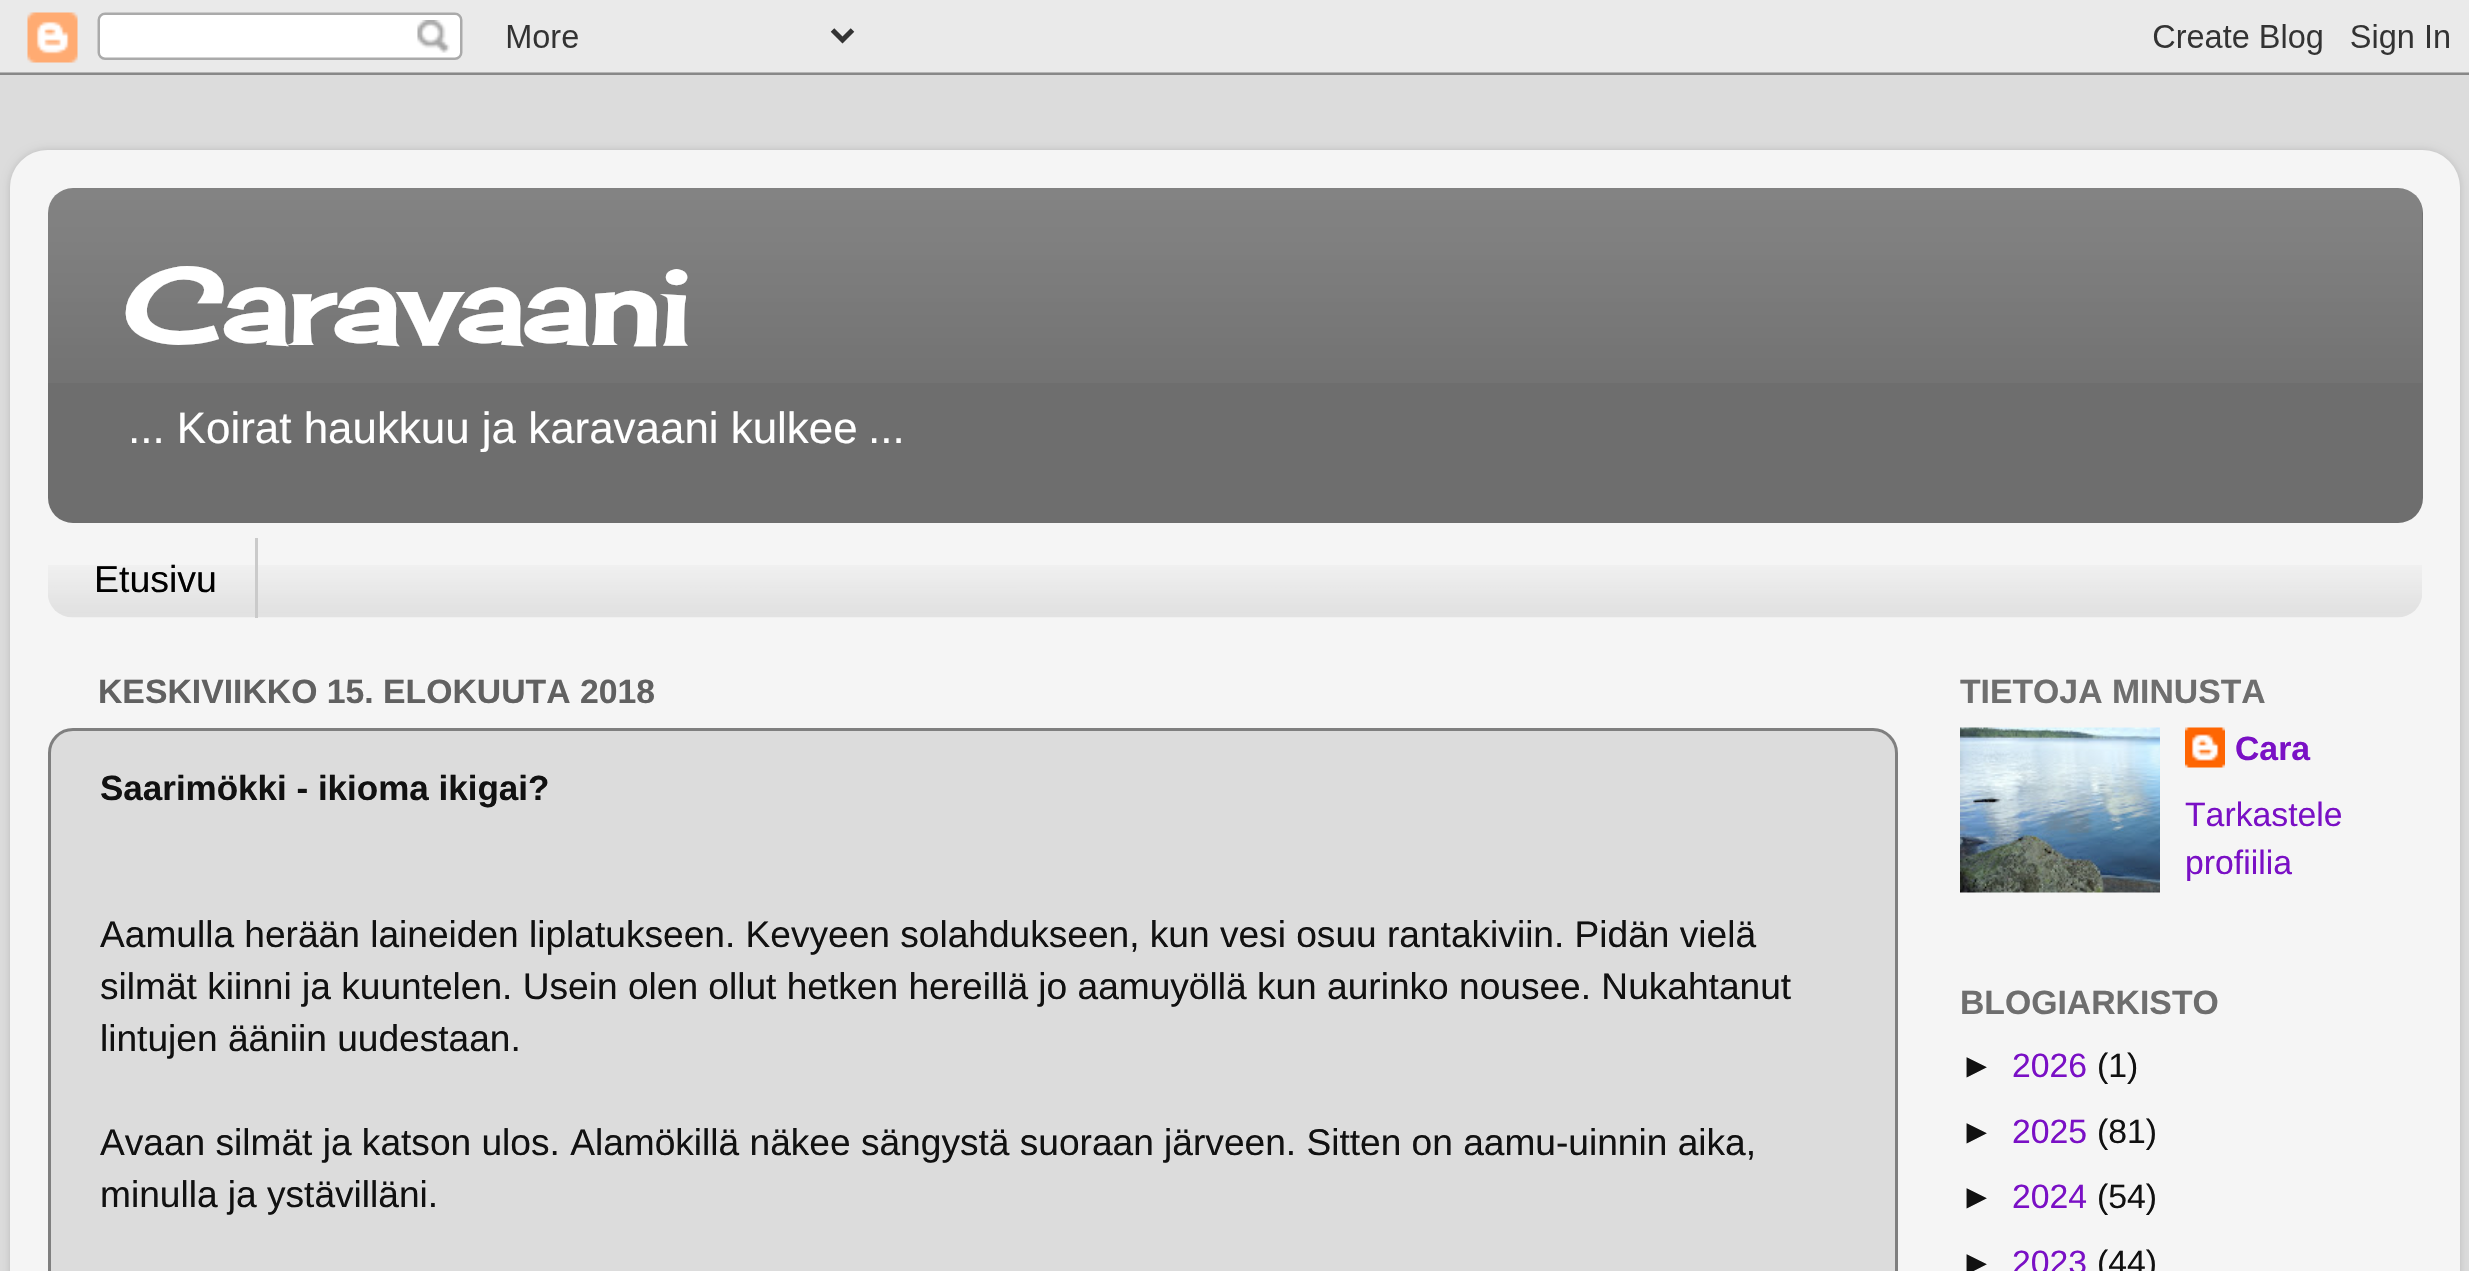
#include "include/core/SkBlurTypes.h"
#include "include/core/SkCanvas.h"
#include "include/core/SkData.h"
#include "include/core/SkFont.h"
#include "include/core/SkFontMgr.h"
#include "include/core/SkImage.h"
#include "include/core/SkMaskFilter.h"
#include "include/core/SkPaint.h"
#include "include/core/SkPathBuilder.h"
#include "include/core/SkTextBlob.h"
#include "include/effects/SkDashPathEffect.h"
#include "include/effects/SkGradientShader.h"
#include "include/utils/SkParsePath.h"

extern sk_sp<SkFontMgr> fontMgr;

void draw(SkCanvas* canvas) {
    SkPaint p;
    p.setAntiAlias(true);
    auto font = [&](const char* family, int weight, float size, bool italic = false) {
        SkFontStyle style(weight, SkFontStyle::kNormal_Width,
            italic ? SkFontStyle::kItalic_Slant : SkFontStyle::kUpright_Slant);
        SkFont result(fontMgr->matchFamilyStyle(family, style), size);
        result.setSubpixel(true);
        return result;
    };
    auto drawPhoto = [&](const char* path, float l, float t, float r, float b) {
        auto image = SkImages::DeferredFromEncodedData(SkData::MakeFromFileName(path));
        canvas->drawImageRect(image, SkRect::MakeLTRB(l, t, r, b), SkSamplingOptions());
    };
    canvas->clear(0xFFDCDCDC);
    drawPhoto("media/1.png", 0, 0, 2469, 75);
    canvas->save();
    canvas->clipPath(SkPathBuilder(SkPathFillType::kEvenOdd).moveTo(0, 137).lineTo(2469, 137).lineTo(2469, 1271).lineTo(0, 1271).close().moveTo(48, 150).lineTo(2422, 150).cubicTo(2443, 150, 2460, 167, 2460, 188).lineTo(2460, 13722).cubicTo(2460, 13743, 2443, 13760, 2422, 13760).lineTo(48, 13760).cubicTo(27, 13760, 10, 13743, 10, 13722).lineTo(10, 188).cubicTo(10, 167, 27, 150, 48, 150).close().detach(), true);
    p.setColor(0x26000000);
    p.setMaskFilter(SkMaskFilter::MakeBlur(kNormal_SkBlurStyle, 4));
    canvas->drawRoundRect(SkRect::MakeLTRB(10, 150, 2460, 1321), 38, 38, p);
    p.setMaskFilter(nullptr);
    canvas->restore();
    drawPhoto("media/2.png", 10, 150, 2460, 1271);
    p.setColor(0xFF6E6E6E);
    canvas->drawRoundRect(SkRect::MakeLTRB(48, 188, 2423, 523), 25, 25, p);
    drawPhoto("media/3.png", 48, 188, 2423, 383);
    auto font1 = font("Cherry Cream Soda", 700, 105);
    p.setColor(0xFFFFFFFF);
    canvas->drawString("Caravaani", 123, 345, font1, p);
    auto font2 = font("Liberation Sans", 400, 43.9f);
    canvas->drawString("... Koirat haukkuu ja karavaani kulkee", 128, 443, font2, p);
    canvas->drawString("...", 868, 443, font2, p);
    drawPhoto("media/4.png", 48, 565, 2422, 618);
    p.setColor(0xFFCACACA);
    canvas->drawRect(SkRect::MakeLTRB(255, 538, 258, 618), p);
    auto font3 = font("Liberation Sans", 400, 37.5f);
    p.setColor(0xFF000000);
    canvas->drawString("Etusivu", 94, 592, font3, p);
    auto font4 = font("Liberation Sans", 700, 33.75f);
    p.setColor(0xFF616161);
    canvas->drawString("KESKIVIIKKO 15. ELOKUUTA 2018", 98, 703, font4, p);
    p.setColor(0xFFDCDCDC);
    canvas->drawRoundRect(SkRect::MakeLTRB(49.5f, 729.5f, 1896.5f, 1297.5f), 23.5f, 23.5f, p);
    p.setStyle(SkPaint::kStroke_Style);
    p.setStrokeWidth(3);
    p.setColor(0xFF7F7F7F);
    canvas->drawRoundRect(SkRect::MakeLTRB(49.5f, 729.5f, 1896.5f, 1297.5f), 23.5f, 23.5f, p);
    auto font5 = font("Liberation Sans", 700, 35);
    p.setStyle(SkPaint::kFill_Style);
    p.setColor(0xFF111111);
    canvas->drawString("Saarimökki - ikioma ikigai?", 100, 800, font5, p);
    auto font6 = font("Liberation Sans", 400, 37.1f);
    {
        const struct { const char* s; float x, y; } items[] = {
            {"Aamulla herään laineiden liplatukseen. Kevyeen solahdukseen, kun vesi osuu rantakiviin. Pidän vielä", 100, 947},
            {"silmät kiinni ja kuuntelen. Usein olen ollut hetken hereillä jo aamuyöllä kun aurinko nousee. Nukahtanut", 100, 999},
            {"lintujen ääniin uudestaan.", 100, 1051},
            {"Avaan silmät ja katson ulos. Alamökillä näkee sängystä suoraan järveen. Sitten on aamu-uinnin aika,", 100, 1155},
            {"minulla ja ystävilläni.", 100, 1207},
        };
        for (auto [s, x, y] : items) {
            canvas->drawString(s, x, y, font6, p);
        }
    }
    p.setColor(0xFF6E6E6E);
    canvas->drawString("TIETOJA MINUSTA", 1960, 703, font4, p);
    drawPhoto("media/5.png", 1960, 727, 2160, 893);
    drawPhoto("media/6.png", 2185, 727, 2225, 768);
    p.setColor(0xFF7A10C5);
    canvas->drawString("Cara", 2235, 760, font4, p);
    auto font7 = font("Liberation Sans", 400, 33.75f);
    canvas->drawString("Tarkastele", 2185, 826, font7, p);
    canvas->drawString("profiilia", 2185, 874, font7, p);
    p.setColor(0xFF6E6E6E);
    canvas->drawString("BLOGIARKISTO", 1960, 1014, font4, p);
    p.setColor(0xFF111111);
    canvas->drawString("►", 1960, 1077, font7, p);
    p.setColor(0xFF7A10C5);
    canvas->drawString("2026", 2012, 1077, font7, p);
    p.setColor(0xFF111111);
    canvas->drawString("(1)", 2097, 1077, font7, p);
    canvas->drawString("►", 1960, 1143, font7, p);
    p.setColor(0xFF7A10C5);
    canvas->drawString("2025", 2012, 1143, font7, p);
    p.setColor(0xFF111111);
    canvas->drawString("(81)", 2097, 1143, font7, p);
    canvas->drawString("►", 1960, 1208, font7, p);
    p.setColor(0xFF7A10C5);
    canvas->drawString("2024", 2012, 1208, font7, p);
    p.setColor(0xFF111111);
    canvas->drawString("(54)", 2097, 1208, font7, p);
    canvas->drawString("►", 1960, 1274, font7, p);
    p.setColor(0xFF7A10C5);
    canvas->drawString("2023", 2012, 1274, font7, p);
    p.setColor(0xFF111111);
    canvas->drawString("(44)", 2097, 1274, font7, p);
}
